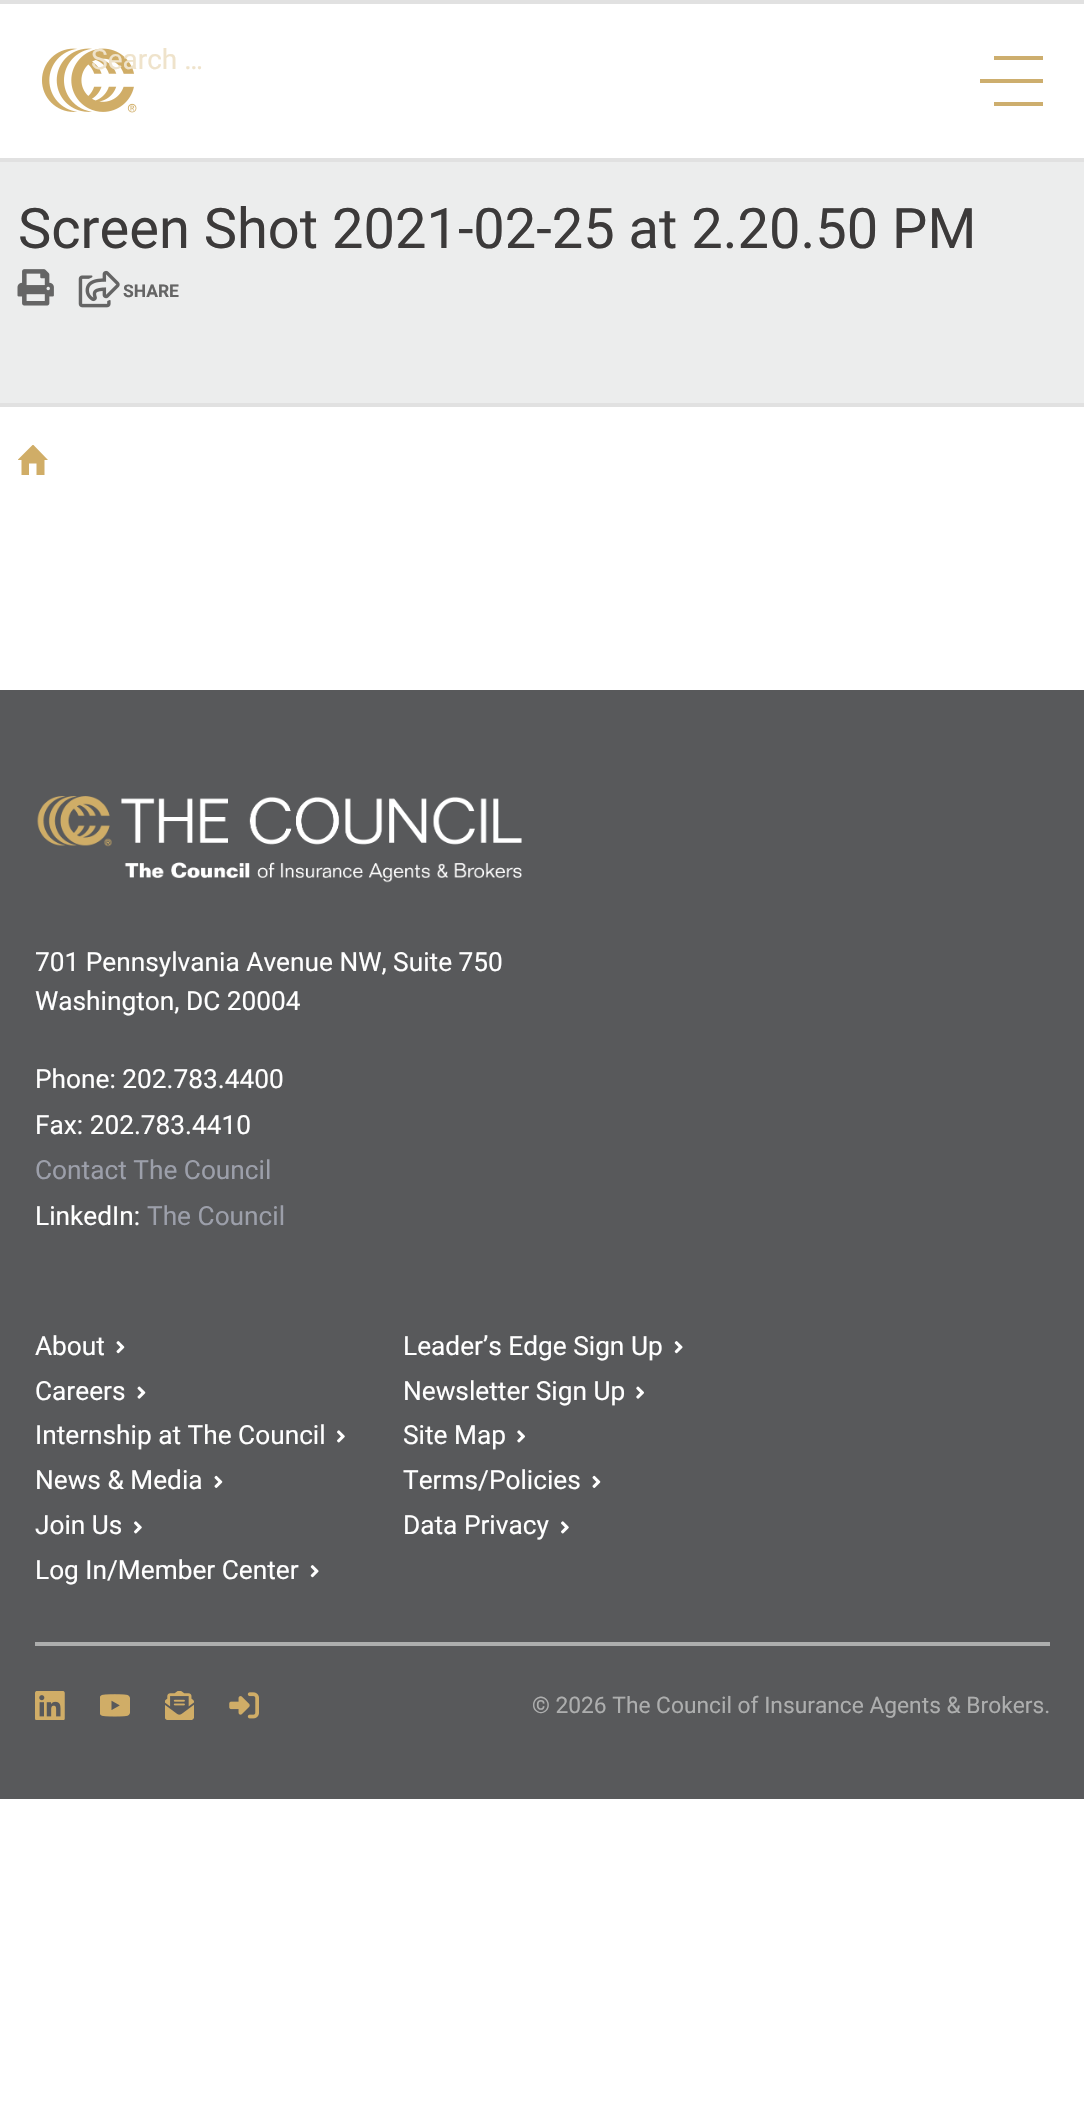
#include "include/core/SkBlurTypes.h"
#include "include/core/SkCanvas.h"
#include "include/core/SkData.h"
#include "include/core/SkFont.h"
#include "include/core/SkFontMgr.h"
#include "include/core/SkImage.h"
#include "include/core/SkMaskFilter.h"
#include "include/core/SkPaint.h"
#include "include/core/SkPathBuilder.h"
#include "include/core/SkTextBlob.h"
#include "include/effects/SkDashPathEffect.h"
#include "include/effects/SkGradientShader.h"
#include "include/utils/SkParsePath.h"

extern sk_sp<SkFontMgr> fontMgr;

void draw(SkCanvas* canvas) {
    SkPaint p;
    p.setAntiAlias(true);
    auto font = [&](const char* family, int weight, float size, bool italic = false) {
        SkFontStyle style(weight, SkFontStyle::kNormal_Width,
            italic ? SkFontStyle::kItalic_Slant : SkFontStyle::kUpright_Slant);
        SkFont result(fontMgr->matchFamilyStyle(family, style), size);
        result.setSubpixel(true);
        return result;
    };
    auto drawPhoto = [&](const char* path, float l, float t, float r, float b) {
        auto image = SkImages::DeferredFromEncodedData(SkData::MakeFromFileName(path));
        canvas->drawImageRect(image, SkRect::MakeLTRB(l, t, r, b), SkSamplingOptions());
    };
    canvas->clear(0xFFFFFFFF);
    p.setColor(0xFFE1E1E1);
    canvas->drawRect(SkRect::MakeLTRB(0, 0, 1084, 4), p);
    canvas->drawRect(SkRect::MakeLTRB(0, 158, 1084, 162), p);
    drawPhoto("media/1.png", 42, 48, 137, 113);
    auto font1 = font("Roboto", 400, 28);
    p.setColor(0xFFEFE3CB);
    canvas->drawString("Search …", 91, 69, font1, p);
    {
        const struct { float l, t, r, b; SkColor color; } items[] = {
            {994, 56, 1043, 60, 0xFFCDAE6E},
            {980, 79, 1043, 83, 0xFFCDAE6E},
            {994, 102, 1043, 106, 0xFFCDAE6E},
            {0, 162, 1084, 403, 0xFFECEDED},
            {0, 403, 1084, 407, 0xFFE1E1E1},
        };
        for (auto [l, t, r, b, color] : items) {
            p.setColor(color);
            canvas->drawRect(SkRect::MakeLTRB(l, t, r, b), p);
        }
    }
    auto font2 = font("Roboto", 400, 56);
    p.setColor(0xFF3C3A3A);
    canvas->drawString("Screen Shot 2021-02-25 at 2.20.50 PM", 18, 248, font2, p);
    drawPhoto("media/2.png", 17, 269, 54, 306);
    drawPhoto("media/3.png", 78, 270, 120, 308);
    auto font3 = font("Roboto", 700, 17.5f);
    p.setColor(0xFF656565);
    canvas->drawString("SHARE", 123, 297, font3, p);
    canvas->save();
    canvas->clipRect(SkRect::MakeLTRB(18, 445, 49, 476));
    p.setColor(0xFFD0AD67);
    canvas->drawPath(SkPathBuilder().moveTo(17.5f, 460).lineTo(21.5f, 460).lineTo(21.5f, 475).lineTo(29, 475).lineTo(29, 463.5f).lineTo(36.5f, 463.5f).lineTo(36.5f, 475).lineTo(44.5f, 475).lineTo(44.5f, 460).lineTo(48, 460).lineTo(33, 444.5f).close().detach(), p);
    canvas->restore();
    p.setColor(0xFF58595B);
    canvas->drawRect(SkRect::MakeLTRB(0, 690, 1084, 1799), p);
    drawPhoto("media/4.png", 37, 796, 522, 883);
    auto font4 = font("Roboto", 400, 26.25f);
    p.setColor(0xFFFFFFFF);
    {
        const struct { const char* s; float x, y; } items[] = {
            {"701 Pennsylvania Avenue NW, Suite 750", 35, 971},
            {"Washington, DC 20004", 35, 1010},
            {"Phone: 202.783.4400", 35, 1088},
            {"Fax: 202.783.4410", 35, 1134},
        };
        for (auto [s, x, y] : items) {
            canvas->drawString(s, x, y, font4, p);
        }
    }
    p.setColor(0xFF9C9FAA);
    canvas->drawString("Contact The Council", 35, 1179, font4, p);
    p.setColor(0xFFFFFFFF);
    canvas->drawString("LinkedIn:", 35, 1225, font4, p);
    p.setColor(0xFF9C9FAA);
    canvas->drawString("The Council", 147, 1225, font4, p);
    p.setColor(0xFFFFFFFF);
    canvas->drawString("About", 35, 1355, font4, p);
    drawPhoto("media/5.png", 116, 1341, 125, 1354);
    canvas->drawString("Leader’s Edge Sign Up", 403, 1355, font4, p);
    drawPhoto("media/6.png", 674, 1341, 683, 1354);
    canvas->drawString("Careers", 35, 1400, font4, p);
    drawPhoto("media/7.png", 137, 1386, 146, 1399);
    canvas->drawString("Newsletter Sign Up", 403, 1400, font4, p);
    drawPhoto("media/8.png", 636, 1386, 644, 1399);
    canvas->drawString("Internship at The Council", 35, 1444, font4, p);
    drawPhoto("media/9.png", 337, 1430, 345, 1443);
    canvas->drawString("Site Map", 403, 1444, font4, p);
    drawPhoto("media/10.png", 517, 1430, 525, 1443);
    canvas->drawString("News & Media", 35, 1489, font4, p);
    drawPhoto("media/11.png", 214, 1475, 223, 1488);
    canvas->drawString("Terms/Policies", 403, 1489, font4, p);
    drawPhoto("media/11.png", 592, 1475, 601, 1488);
    canvas->drawString("Join Us", 35, 1534, font4, p);
    drawPhoto("media/9.png", 134, 1521, 142, 1534);
    canvas->drawString("Data Privacy", 403, 1534, font4, p);
    drawPhoto("media/9.png", 561, 1521, 569, 1534);
    canvas->drawString("Log In/Member Center", 35, 1579, font4, p);
    drawPhoto("media/6.png", 310, 1565, 319, 1578);
    p.setColor(0xFFADAEAE);
    canvas->drawRect(SkRect::MakeLTRB(35, 1642, 1050, 1646), p);
    drawPhoto("media/12.png", 35, 1691, 65, 1720);
    drawPhoto("media/13.png", 100, 1694, 130, 1717);
    drawPhoto("media/14.png", 165, 1691, 194, 1720);
    drawPhoto("media/15.png", 229, 1692, 259, 1719);
    auto font5 = font("Roboto", 400, 22.75f);
    canvas->drawString("© 2026 The Council of Insurance Agents & Brokers.", 532, 1713, font5, p);
}
